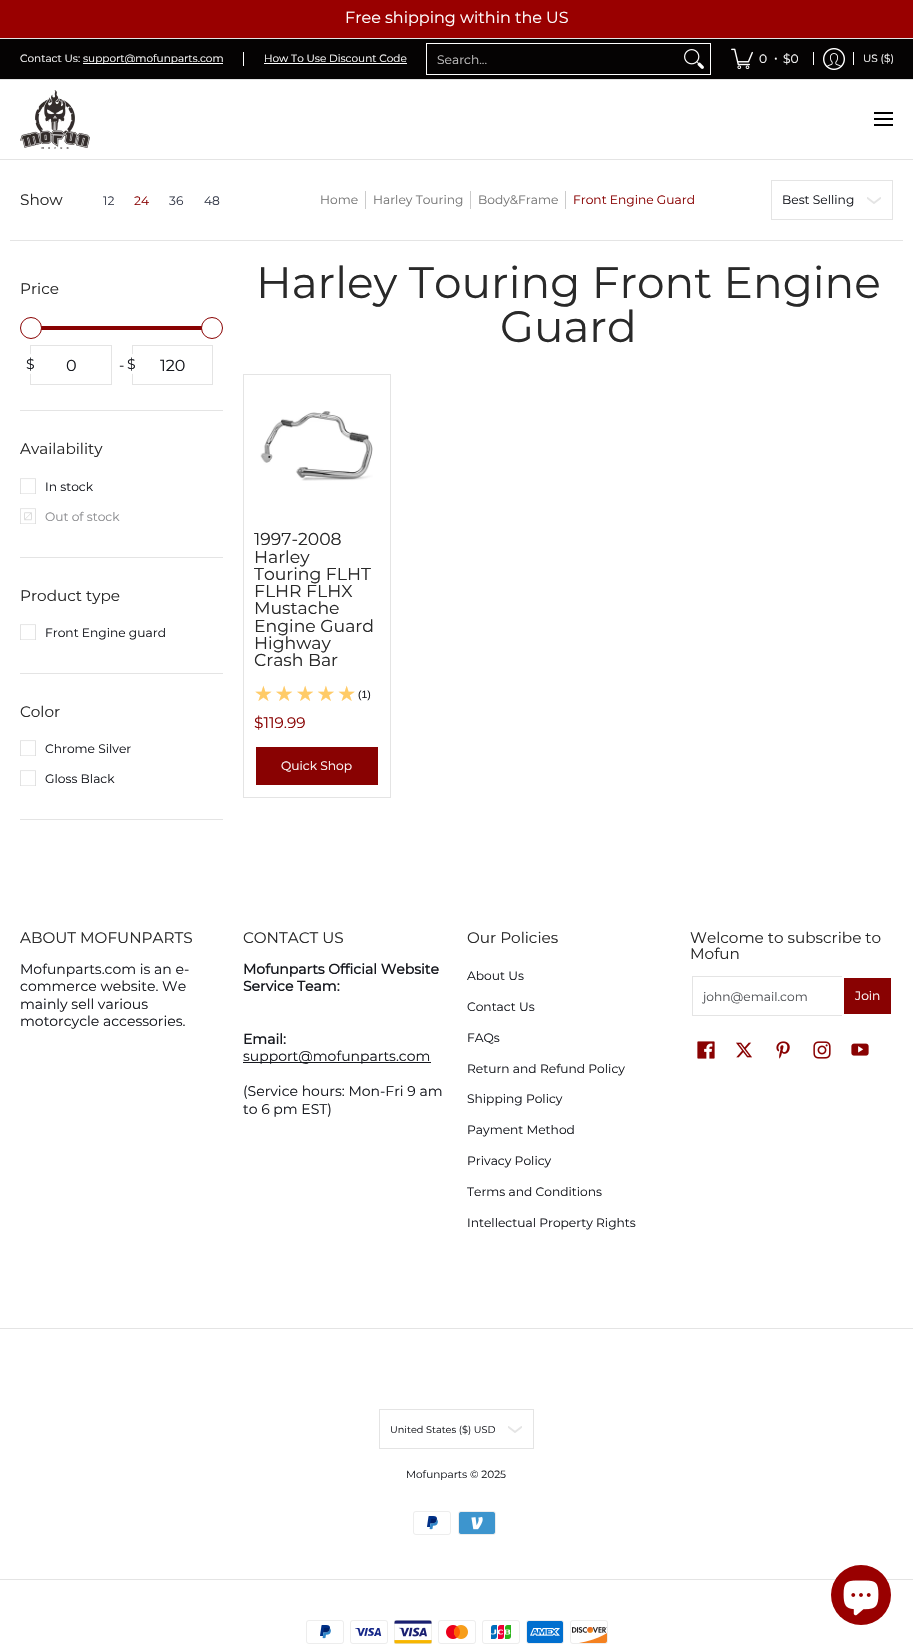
#include "include/core/SkBlurTypes.h"
#include "include/core/SkCanvas.h"
#include "include/core/SkData.h"
#include "include/core/SkFont.h"
#include "include/core/SkFontMgr.h"
#include "include/core/SkImage.h"
#include "include/core/SkMaskFilter.h"
#include "include/core/SkPaint.h"
#include "include/core/SkPathBuilder.h"
#include "include/core/SkTextBlob.h"
#include "include/effects/SkDashPathEffect.h"
#include "include/effects/SkGradientShader.h"
#include "include/utils/SkParsePath.h"

extern sk_sp<SkFontMgr> fontMgr;

void draw(SkCanvas* canvas) {
    SkPaint p;
    p.setAntiAlias(true);
    auto font = [&](const char* family, int weight, float size, bool italic = false) {
        SkFontStyle style(weight, SkFontStyle::kNormal_Width,
            italic ? SkFontStyle::kItalic_Slant : SkFontStyle::kUpright_Slant);
        SkFont result(fontMgr->matchFamilyStyle(family, style), size);
        result.setSubpixel(true);
        return result;
    };
    auto drawTracked = [&](const char* s, float x, float y, const SkFont& font, const SkPaint& ink, float letter, float word) {
        std::vector<SkGlyphID> glyphs(font.countText(s, strlen(s), SkTextEncoding::kUTF8));
        std::vector<float> xs(glyphs.size());
        font.textToGlyphs(s, strlen(s), SkTextEncoding::kUTF8, glyphs);
        font.getXPos(glyphs, xs, x);
        float extra = 0;
        for (size_t i = 0; i < glyphs.size(); i++) {
            xs[i] += extra;
            extra += letter + word * (glyphs[i] == font.unicharToGlyph(' '));
        }
        canvas->drawTextBlob(SkTextBlob::MakeFromPosHGlyphs(glyphs, xs, y, font), 0, 0, ink);
    };
    auto drawPhoto = [&](const char* path, float l, float t, float r, float b) {
        auto image = SkImages::DeferredFromEncodedData(SkData::MakeFromFileName(path));
        canvas->drawImageRect(image, SkRect::MakeLTRB(l, t, r, b), SkSamplingOptions());
    };
    canvas->clear(0xFFFFFFFF);
    p.setColor(0xFF990000);
    canvas->drawRect(SkRect::MakeLTRB(0, 0, 913, 38), p);
    p.setColor(0xFFE4E4E4);
    canvas->drawRect(SkRect::MakeLTRB(0, 38, 913, 39), p);
    auto font1 = font("Montserrat", 400, 16);
    p.setColor(0xFFFFFFFF);
    canvas->drawString("Free shipping within the US", 345, 23, font1, p);
    p.setColor(0xFF050303);
    canvas->drawRect(SkRect::MakeLTRB(0, 39, 913, 79), p);
    p.setColor(0xFFE4E4E4);
    canvas->drawRect(SkRect::MakeLTRB(0, 79, 913, 80), p);
    auto font2 = font("Montserrat", 400, 10.5f);
    p.setColor(0xFFFFFFFF);
    canvas->drawString("Contact Us:", 20, 62, font2, p);
    canvas->drawRect(SkRect::MakeLTRB(83, 63, 223, 64), p);
    canvas->drawString("support@mofunparts.com", 83, 62, font2, p);
    canvas->drawRect(SkRect::MakeLTRB(243, 52, 244, 66), p);
    canvas->drawString("How To Use Discount Code", 264, 62, font2, p);
    canvas->drawRect(SkRect::MakeLTRB(264, 63, 407, 64), p);
    p.setStyle(SkPaint::kStroke_Style);
    p.setStrokeWidth(1);
    canvas->drawRect(SkRect::MakeLTRB(426.5f, 43.5f, 710.5f, 74.5f), p);
    auto font3 = font("Montserrat", 400, 12.25f);
    p.setStyle(SkPaint::kFill_Style);
    p.setColor(0xFFC1C0C0);
    canvas->drawString("Search...", 437, 64, font3, p);
    drawPhoto("media/1.png", 684, 49, 704, 69);
    drawPhoto("media/2.png", 731, 48, 753, 70);
    p.setColor(0xFFFFFFFF);
    {
        const struct { const char* s; float x, y; } items[] = {
            {"0", 759, 63},
            {"•", 774, 62},
            {"$0", 783, 63},
        };
        for (auto [s, x, y] : items) {
            canvas->drawString(s, x, y, font3, p);
        }
    }
    canvas->drawRect(SkRect::MakeLTRB(813, 52, 814, 65), p);
    drawPhoto("media/3.png", 823, 48, 845, 70);
    canvas->drawRect(SkRect::MakeLTRB(853, 52, 854, 65), p);
    canvas->drawString("US ($)", 863, 62, font2, p);
    p.setColor(0xFFE4E4E4);
    canvas->drawRect(SkRect::MakeLTRB(0, 159, 913, 160), p);
    drawPhoto("media/4.png", 20, 90, 90, 149);
    {
        const struct { float l, t, r, b; SkColor color; } items[] = {
            {874, 112, 893, 114, 0xFF000000},
            {874, 124, 893, 126, 0xFF000000},
            {874, 118, 893, 120, 0xFF000000},
            {10, 240, 903, 241, 0xFFE4E4E4},
        };
        for (auto [l, t, r, b, color] : items) {
            p.setColor(color);
            canvas->drawRect(SkRect::MakeLTRB(l, t, r, b), p);
        }
    }
    auto font4 = font("Montserrat", 400, 15.25f);
    p.setColor(0xFF292929);
    canvas->drawString("Show", 20, 205, font4, p);
    p.setColor(0xFF363B4A);
    canvas->drawString("12", 103, 205, font3, p);
    p.setColor(0xFF890202);
    canvas->drawString("24", 134, 205, font3, p);
    p.setColor(0xFF363B4A);
    canvas->drawString("36", 169, 205, font3, p);
    canvas->drawString("48", 204, 205, font3, p);
    p.setColor(0xFF767676);
    canvas->drawString("Home", 320, 204, font3, p);
    p.setColor(0xFFCBCBCB);
    canvas->drawRect(SkRect::MakeLTRB(365, 191, 366, 209), p);
    p.setColor(0xFF767676);
    canvas->drawString("Harley Touring", 373, 204, font3, p);
    p.setColor(0xFFCBCBCB);
    canvas->drawRect(SkRect::MakeLTRB(470, 191, 471, 209), p);
    p.setColor(0xFF767676);
    canvas->drawString("Body&Frame", 478, 204, font3, p);
    p.setColor(0xFFCBCBCB);
    canvas->drawRect(SkRect::MakeLTRB(565, 191, 566, 209), p);
    p.setColor(0xFF890202);
    canvas->drawString("Front Engine Guard", 573, 204, font3, p);
    p.setStyle(SkPaint::kStroke_Style);
    p.setColor(0xFFE4E4E4);
    canvas->drawRect(SkRect::MakeLTRB(771.5f, 180.5f, 892.5f, 219.5f), p);
    p.setStyle(SkPaint::kFill_Style);
    p.setColor(0xFF16181E);
    canvas->drawString("Best Selling", 782, 204, font3, p);
    canvas->save();
    canvas->clipRect(SkRect::MakeLTRB(867, 193, 881, 207));
    p.setStyle(SkPaint::kStroke_Style);
    p.setStrokeWidth(1.8f);
    p.setStrokeCap(SkPaint::kRound_Cap);
    p.setStrokeJoin(SkPaint::kRound_Join);
    p.setColor(0xFFE4E4E4);
    canvas->drawPath(SkPathBuilder().moveTo(867.5f, 198).lineTo(874, 203).lineTo(880.5f, 198).detach(), p);
    canvas->restore();
    p.setStyle(SkPaint::kFill_Style);
    canvas->drawRect(SkRect::MakeLTRB(20, 410, 223, 411), p);
    p.setColor(0xFF292929);
    canvas->drawString("Price", 20, 294, font4, p);
    p.setColor(0xFF890202);
    canvas->drawRect(SkRect::MakeLTRB(41, 326, 202, 330), p);
    p.setColor(0xFFFFFFFF);
    canvas->drawCircle(31, 328, 10.5f, p);
    p.setStyle(SkPaint::kStroke_Style);
    p.setStrokeWidth(1);
    p.setStrokeCap(SkPaint::kButt_Cap);
    p.setStrokeJoin(SkPaint::kMiter_Join);
    p.setColor(0xFF890202);
    canvas->drawCircle(31, 328, 10.5f, p);
    p.setStyle(SkPaint::kFill_Style);
    p.setColor(0xFFFFFFFF);
    canvas->drawCircle(212, 328, 10.5f, p);
    p.setStyle(SkPaint::kStroke_Style);
    p.setColor(0xFF890202);
    canvas->drawCircle(212, 328, 10.5f, p);
    p.setColor(0xFFE4E4E4);
    canvas->drawRect(SkRect::MakeLTRB(30.5f, 345.5f, 111.5f, 384.5f), p);
    p.setStyle(SkPaint::kFill_Style);
    p.setColor(0xFFFFFFFF);
    canvas->drawCircle(30, 364, 10, p);
    auto font5 = font("Montserrat", 400, 14);
    p.setColor(0xFF16181E);
    canvas->drawString("$", 26, 369, font5, p);
    canvas->drawString("0", 66, 371, font1, p);
    p.setStyle(SkPaint::kStroke_Style);
    p.setColor(0xFFE4E4E4);
    canvas->drawRect(SkRect::MakeLTRB(132.5f, 345.5f, 212.5f, 384.5f), p);
    p.setStyle(SkPaint::kFill_Style);
    p.setColor(0xFFFFFFFF);
    canvas->drawCircle(132, 364, 10, p);
    p.setColor(0xFF16181E);
    canvas->drawString("-", 119, 370, font5, p);
    canvas->drawString("$", 127, 369, font5, p);
    canvas->drawString("120", 160, 371, font1, p);
    p.setColor(0xFFE4E4E4);
    canvas->drawRect(SkRect::MakeLTRB(20, 557, 223, 558), p);
    p.setColor(0xFF292929);
    canvas->drawString("Availability", 20, 454, font4, p);
    drawPhoto("media/5.png", 20, 478, 36, 494);
    p.setColor(0xFF16181E);
    canvas->drawString("In stock", 45, 491, font3, p);
    drawPhoto("media/5.png", 20, 508, 36, 524);
    p.setColor(0xFF8B8C8F);
    canvas->drawString("Out of stock", 45, 521, font3, p);
    drawPhoto("media/6.png", 24, 512, 32, 521);
    p.setColor(0xFFE4E4E4);
    canvas->drawRect(SkRect::MakeLTRB(20, 673, 223, 674), p);
    p.setColor(0xFF292929);
    canvas->drawString("Product type", 20, 601, font4, p);
    drawPhoto("media/5.png", 20, 624, 36, 640);
    p.setColor(0xFF16181E);
    canvas->drawString("Front Engine guard", 45, 637, font3, p);
    p.setColor(0xFFE4E4E4);
    canvas->drawRect(SkRect::MakeLTRB(20, 819, 223, 820), p);
    p.setColor(0xFF292929);
    canvas->drawString("Color", 20, 717, font4, p);
    drawPhoto("media/5.png", 20, 740, 36, 756);
    p.setColor(0xFF16181E);
    canvas->drawString("Chrome Silver", 45, 753, font3, p);
    drawPhoto("media/5.png", 20, 770, 36, 786);
    canvas->drawString("Gloss Black", 45, 783, font3, p);
    auto font6 = font("Montserrat", 400, 43.9f);
    p.setColor(0xFF292929);
    canvas->drawString("Harley Touring Front Engine", 256, 298, font6, p);
    canvas->drawString("Guard", 500, 342, font6, p);
    p.setStyle(SkPaint::kStroke_Style);
    p.setColor(0xFFE4E4E4);
    canvas->drawRect(SkRect::MakeLTRB(243.5f, 374.5f, 390.5f, 797.5f), p);
    drawPhoto("media/7.png", 260, 411, 373, 481);
    auto font7 = font("Montserrat", 400, 17.25f);
    p.setStyle(SkPaint::kFill_Style);
    p.setColor(0xFF292929);
    {
        const struct { const char* s; float x, y; } items[] = {
            {"1997-2008", 254, 545},
            {"Harley", 254, 563},
            {"Touring FLHT", 254, 580},
            {"FLHR FLHX", 254, 597},
            {"Mustache", 254, 614},
            {"Engine Guard", 254, 632},
            {"Highway", 254, 649},
            {"Crash Bar", 254, 666},
        };
        for (auto [s, x, y] : items) {
            canvas->drawString(s, x, y, font7, p);
        }
    }
    auto font8 = font("DejaVu Sans", 400, 21);
    {
        const SkColor colors[] = {0xFFFFCB67, 0xFFEFEFEF};
        const float stops[] = {1, 1};
        const SkPoint ends[] = {{254, 694}, {358, 694}};
        p.setShader(SkGradientShader::MakeLinear(ends, colors, stops, 2, SkTileMode::kClamp));
        p.setAlpha(255);
    }
    drawTracked("★★★★★", 254, 701, font8, p, 2, 0);
    auto font9 = font("Liberation Sans", 400, 10.5f);
    p.setShader(nullptr);
    p.setColor(0xFF16181E);
    canvas->drawString("(1)", 358, 698, font9, p);
    p.setColor(0xFF890202);
    canvas->drawString("$119.99", 254, 728, font4, p);
    canvas->drawRect(SkRect::MakeLTRB(256, 747, 378, 785), p);
    p.setColor(0xFFFFFFFF);
    canvas->drawString("Quick Shop", 281, 770, font3, p);
    p.setColor(0xFFE4E4E4);
    canvas->drawRect(SkRect::MakeLTRB(0, 1328, 913, 1329), p);
    p.setColor(0xFF292929);
    canvas->drawString("ABOUT MOFUNPARTS", 20, 943, font4, p);
    p.setColor(0xFF16181E);
    {
        const struct { const char* s; float x, y; } items[] = {
            {"Mofunparts.com is an e-", 20, 974},
            {"commerce website. We", 20, 991},
            {"mainly sell various", 20, 1009},
            {"motorcycle accessories.", 20, 1026},
        };
        for (auto [s, x, y] : items) {
            canvas->drawString(s, x, y, font5, p);
        }
    }
    p.setColor(0xFF292929);
    canvas->drawString("CONTACT US", 243, 943, font4, p);
    auto font10 = font("Montserrat", 700, 14);
    p.setColor(0xFF16181E);
    {
        const struct { const char* s; float x, y; } items[] = {
            {"Mofunparts Official Website", 243, 974},
            {"Service Team:", 243, 991},
            {"Email:", 243, 1044},
        };
        for (auto [s, x, y] : items) {
            canvas->drawString(s, x, y, font10, p);
        }
    }
    canvas->drawRect(SkRect::MakeLTRB(243, 1062, 431, 1063), p);
    {
        const struct { const char* s; float x, y; } items[] = {
            {"support@mofunparts.com", 243, 1061},
            {"(Service hours: Mon-Fri 9 am", 243, 1096},
            {"to 6 pm EST)", 243, 1114},
        };
        for (auto [s, x, y] : items) {
            canvas->drawString(s, x, y, font5, p);
        }
    }
    p.setColor(0xFF292929);
    canvas->drawString("Our Policies", 467, 943, font4, p);
    p.setColor(0xFF16181E);
    {
        const struct { const char* s; float x, y; } items[] = {
            {"About Us", 467, 980},
            {"Contact Us", 467, 1011},
            {"FAQs", 467, 1042},
            {"Return and Refund Policy", 467, 1073},
            {"Shipping Policy", 467, 1103},
            {"Payment Method", 467, 1134},
            {"Privacy Policy", 467, 1165},
            {"Terms and Conditions", 467, 1196},
            {"Intellectual Property Rights", 467, 1227},
        };
        for (auto [s, x, y] : items) {
            canvas->drawString(s, x, y, font3, p);
        }
    }
    p.setColor(0xFF292929);
    canvas->drawString("Welcome to subscribe to", 690, 943, font4, p);
    canvas->drawString("Mofun", 690, 959, font4, p);
    p.setStyle(SkPaint::kStroke_Style);
    p.setColor(0xFFE4E4E4);
    canvas->drawRect(SkRect::MakeLTRB(692.5f, 976.5f, 843.5f, 1015.5f), p);
    p.setStyle(SkPaint::kFill_Style);
    p.setColor(0xFF505256);
    canvas->drawString("john@email.com", 703, 1001, font3, p);
    p.setColor(0xFF890202);
    canvas->drawRect(SkRect::MakeLTRB(843, 977, 892, 1015), p);
    p.setStyle(SkPaint::kStroke_Style);
    p.setStrokeWidth(2);
    p.setColor(0xFFFFFFFF);
    canvas->drawRect(SkRect::MakeLTRB(843, 977, 892, 1015), p);
    p.setStyle(SkPaint::kFill_Style);
    canvas->drawString("Join", 855, 1000, font3, p);
    drawPhoto("media/8.png", 697, 1041, 715, 1059);
    drawPhoto("media/9.png", 736, 1042, 752, 1058);
    drawPhoto("media/10.png", 776, 1041, 790, 1059);
    drawPhoto("media/11.png", 813, 1041, 831, 1059);
    drawPhoto("media/12.png", 851, 1043, 869, 1056);
    p.setColor(0xFFE4E4E4);
    canvas->drawRect(SkRect::MakeLTRB(0, 1579, 913, 1580), p);
    p.setStyle(SkPaint::kStroke_Style);
    p.setStrokeWidth(1);
    canvas->drawRect(SkRect::MakeLTRB(379.5f, 1409.5f, 533.5f, 1448.5f), p);
    auto font11 = font("Montserrat", 400, 9.75f);
    p.setStyle(SkPaint::kFill_Style);
    p.setColor(0xFF16181E);
    canvas->drawString("United States ($) USD", 390, 1433, font11, p);
    canvas->save();
    canvas->clipRect(SkRect::MakeLTRB(508, 1422, 522, 1436));
    p.setStyle(SkPaint::kStroke_Style);
    p.setStrokeWidth(1.8f);
    p.setStrokeCap(SkPaint::kRound_Cap);
    p.setStrokeJoin(SkPaint::kRound_Join);
    p.setColor(0xFFE4E4E4);
    canvas->drawPath(SkPathBuilder().moveTo(508.5f, 1427).lineTo(515, 1432).lineTo(521.5f, 1427).detach(), p);
    canvas->restore();
    p.setStyle(SkPaint::kFill_Style);
    p.setColor(0xFF16181E);
    canvas->drawString("Mofunparts © 2025", 406, 1478, font2, p);
    drawPhoto("media/13.png", 413, 1511, 451, 1535);
    drawPhoto("media/14.png", 458, 1511, 496, 1535);
    drawPhoto("media/13.png", 306, 1620, 344, 1644);
    drawPhoto("media/15.png", 350, 1620, 388, 1644);
    drawPhoto("media/16.png", 394, 1620, 432, 1644);
    drawPhoto("media/17.png", 438, 1620, 476, 1644);
    drawPhoto("media/18.png", 482, 1620, 520, 1644);
    drawPhoto("media/19.png", 526, 1620, 564, 1644);
    drawPhoto("media/20.png", 570, 1620, 608, 1644);
    p.setColor(0xFF990000);
    canvas->drawCircle(861, 1595, 30, p);
    drawPhoto("media/21.png", 843, 1580, 879, 1616);
}
